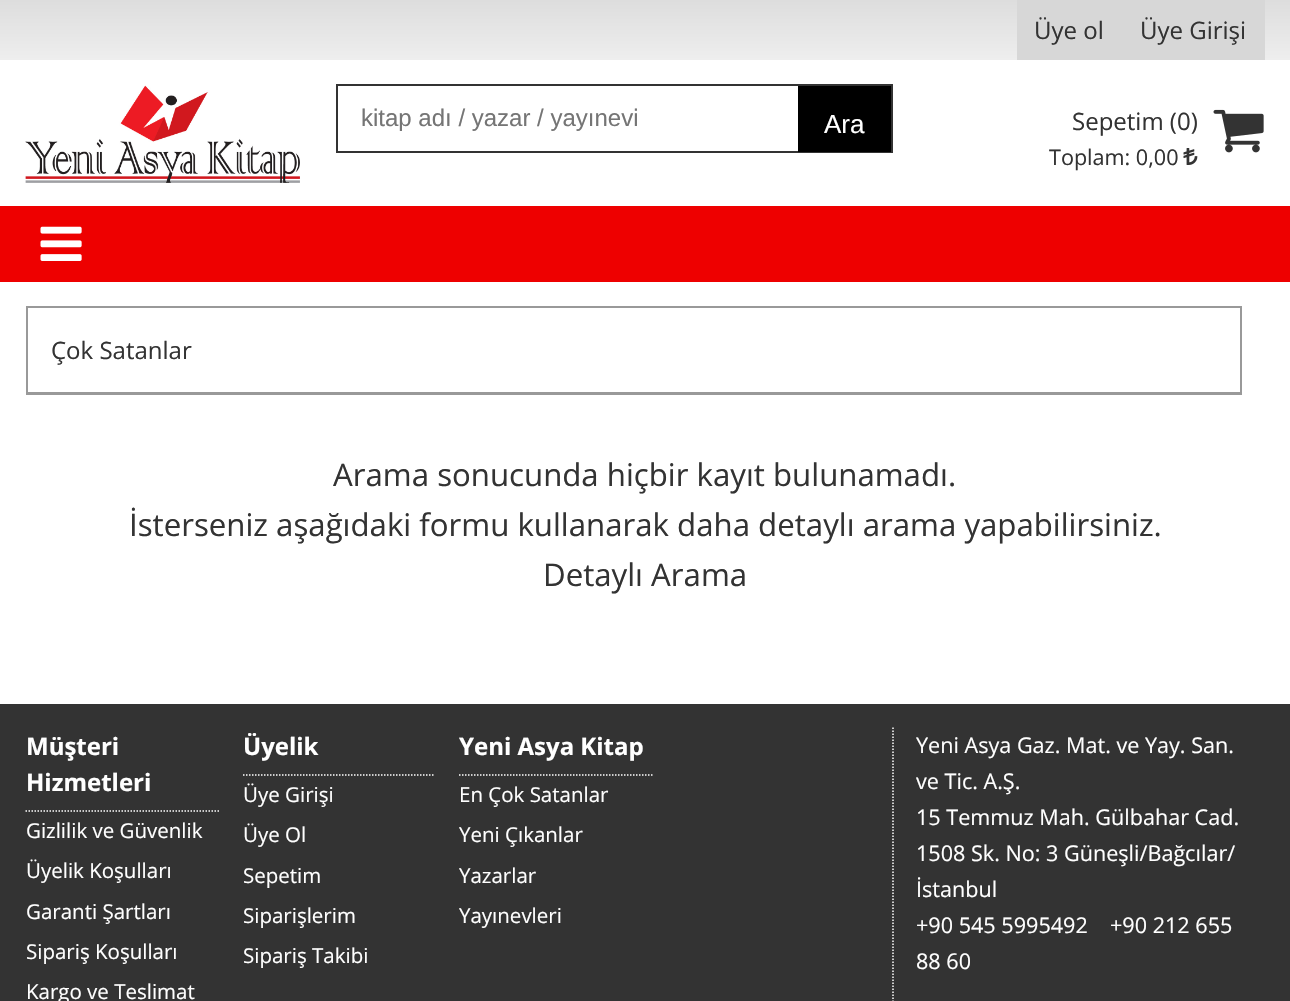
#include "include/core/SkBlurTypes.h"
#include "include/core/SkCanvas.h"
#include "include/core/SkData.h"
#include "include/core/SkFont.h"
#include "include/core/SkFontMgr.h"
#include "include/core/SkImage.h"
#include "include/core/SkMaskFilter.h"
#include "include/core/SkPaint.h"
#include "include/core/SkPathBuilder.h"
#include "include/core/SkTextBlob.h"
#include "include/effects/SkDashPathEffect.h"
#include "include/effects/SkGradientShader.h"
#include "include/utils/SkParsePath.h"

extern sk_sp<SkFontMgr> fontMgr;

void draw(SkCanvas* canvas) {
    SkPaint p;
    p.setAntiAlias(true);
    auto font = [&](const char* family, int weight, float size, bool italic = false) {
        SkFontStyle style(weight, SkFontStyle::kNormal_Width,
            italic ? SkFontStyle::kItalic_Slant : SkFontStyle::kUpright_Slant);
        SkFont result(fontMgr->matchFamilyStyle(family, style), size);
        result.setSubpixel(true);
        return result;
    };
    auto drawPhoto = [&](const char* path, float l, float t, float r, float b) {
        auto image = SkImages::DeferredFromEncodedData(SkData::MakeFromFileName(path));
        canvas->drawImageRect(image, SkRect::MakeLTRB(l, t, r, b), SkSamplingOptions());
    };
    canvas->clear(0xFFFFFFFF);
    {
        const SkColor colors[] = {0xFFDDDDDD, 0xFFEEEEEE};
        const float stops[] = {0, 1};
        const SkPoint ends[] = {{645, 0}, {645, 60}};
        p.setShader(SkGradientShader::MakeLinear(ends, colors, stops, 2, SkTileMode::kClamp));
        p.setAlpha(255);
    }
    canvas->drawRect(SkRect::MakeLTRB(0, 0, 1290, 60), p);
    p.setShader(nullptr);
    p.setColor(0xFFD7D7D7);
    canvas->drawRect(SkRect::MakeLTRB(1017, 0, 1265, 60), p);
    auto font1 = font("Open Sans", 400, 24);
    p.setColor(0xFF333333);
    canvas->drawString("Üye ol", 1034, 39, font1, p);
    canvas->drawString("Üye Girişi", 1140, 39, font1, p);
    drawPhoto("media/1.png", 25, 85, 300, 183);
    p.setStyle(SkPaint::kStroke_Style);
    p.setStrokeWidth(2);
    canvas->drawRect(SkRect::MakeLTRB(337, 85, 892, 152), p);
    auto font2 = font("Liberation Sans", 400, 24);
    p.setStyle(SkPaint::kFill_Style);
    p.setColor(0xFF757575);
    canvas->drawString("kitap adı / yazar / yayınevi", 361, 126, font2, p);
    p.setColor(0xFF000000);
    canvas->drawRect(SkRect::MakeLTRB(798, 86, 891, 152), p);
    auto font3 = font("Liberation Sans", 400, 26);
    p.setColor(0xFFFFFFFF);
    canvas->drawString("Ara", 824, 133, font3, p);
    p.setColor(0xFF333333);
    canvas->drawString("Sepetim (0)", 1072, 130, font1, p);
    drawPhoto("media/2.png", 1213, 109, 1264, 153);
    auto font4 = font("Open Sans", 400, 21.6f);
    canvas->drawString("Toplam: 0,00", 1049, 165, font4, p);
    drawPhoto("media/3.png", 1183, 148, 1198, 165);
    p.setColor(0xFFEE0000);
    canvas->drawRect(SkRect::MakeLTRB(0, 206, 1290, 282), p);
    drawPhoto("media/4.png", 40, 226, 82, 261);
    p.setStyle(SkPaint::kStroke_Style);
    p.setColor(0xFF999999);
    canvas->drawRect(SkRect::MakeLTRB(27, 307, 1241, 394), p);
    p.setStyle(SkPaint::kFill_Style);
    canvas->drawRect(SkRect::MakeLTRB(27, 392, 1241, 393), p);
    p.setColor(0xFF333333);
    canvas->drawString("Çok Satanlar", 51, 359, font1, p);
    auto font5 = font("Open Sans", 400, 31.2f);
    {
        const struct { const char* s; float x, y; } items[] = {
            {"Arama sonucunda hiçbir kayıt bulunamadı.", 333, 486},
            {"İsterseniz aşağıdaki formu kullanarak daha detaylı arama yapabilirsiniz.", 129, 536},
            {"Detaylı Arama", 543, 586},
        };
        for (auto [s, x, y] : items) {
            canvas->drawString(s, x, y, font5, p);
        }
    }
    canvas->drawRect(SkRect::MakeLTRB(0, 704, 1290, 1001), p);
    auto font6 = font("Open Sans", 700, 24);
    p.setColor(0xFFFFFFFF);
    canvas->drawString("Müşteri", 26, 755, font6, p);
    canvas->drawString("Hizmetleri", 26, 791, font6, p);
    p.setStyle(SkPaint::kStroke_Style);
    p.setStrokeWidth(1.5f);
    p.setPathEffect(SkDashPathEffect::Make({{1.5f, 1.5f}}, 0));
    canvas->drawPath(SkPathBuilder().moveTo(25.5f, 811).lineTo(219, 811).detach(), p);
    p.setPathEffect(nullptr);
    auto font7 = font("Open Sans", 400, 20.5f);
    p.setStyle(SkPaint::kFill_Style);
    {
        const struct { const char* s; float x, y; } items[] = {
            {"Gizlilik ve Güvenlik", 26, 838},
            {"Üyelik Koşulları", 26, 878},
            {"Garanti Şartları", 26, 919},
            {"Sipariş Koşulları", 26, 959},
            {"Kargo ve Teslimat", 26, 999},
        };
        for (auto [s, x, y] : items) {
            canvas->drawString(s, x, y, font7, p);
        }
    }
    canvas->drawString("Üyelik", 243, 755, font6, p);
    p.setStyle(SkPaint::kStroke_Style);
    p.setPathEffect(SkDashPathEffect::Make({{1.5f, 1.5f}}, 0));
    canvas->drawPath(SkPathBuilder().moveTo(243, 775).lineTo(435, 775).detach(), p);
    p.setPathEffect(nullptr);
    p.setStyle(SkPaint::kFill_Style);
    {
        const struct { const char* s; float x, y; } items[] = {
            {"Üye Girişi", 243, 802},
            {"Üye Ol", 243, 842},
            {"Sepetim", 243, 883},
            {"Siparişlerim", 243, 923},
            {"Sipariş Takibi", 243, 963},
        };
        for (auto [s, x, y] : items) {
            canvas->drawString(s, x, y, font7, p);
        }
    }
    canvas->drawString("Yeni Asya Kitap", 459, 755, font6, p);
    p.setStyle(SkPaint::kStroke_Style);
    p.setPathEffect(SkDashPathEffect::Make({{1.5f, 1.5f}}, 0));
    canvas->drawPath(SkPathBuilder().moveTo(459, 775).lineTo(652.5f, 775).detach(), p);
    p.setPathEffect(nullptr);
    p.setStyle(SkPaint::kFill_Style);
    {
        const struct { const char* s; float x, y; } items[] = {
            {"En Çok Satanlar", 459, 802},
            {"Yeni Çıkanlar", 459, 842},
            {"Yazarlar", 459, 883},
            {"Yayınevleri", 459, 923},
        };
        for (auto [s, x, y] : items) {
            canvas->drawString(s, x, y, font7, p);
        }
    }
    p.setStyle(SkPaint::kStroke_Style);
    p.setPathEffect(SkDashPathEffect::Make({{1.5f, 1.5f}}, 0));
    canvas->drawPath(SkPathBuilder().moveTo(893, 727.5f).lineTo(893, 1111.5f).detach(), p);
    p.setPathEffect(nullptr);
    p.setStyle(SkPaint::kFill_Style);
    {
        const struct { const char* s; float x, y; } items[] = {
            {"Yeni Asya Gaz. Mat. ve Yay. San.", 916, 753},
            {"ve Tic. A.Ş.", 916, 789},
            {"15 Temmuz Mah. Gülbahar Cad.", 916, 825},
            {"1508 Sk. No: 3 Güneşli/Bağcılar/", 916, 861},
            {"İstanbul", 916, 897},
            {"+90 545 5995492", 916, 933},
            {"+90 212 655", 1110, 933},
            {"88 60", 916, 969},
        };
        for (auto [s, x, y] : items) {
            canvas->drawString(s, x, y, font4, p);
        }
    }
}
